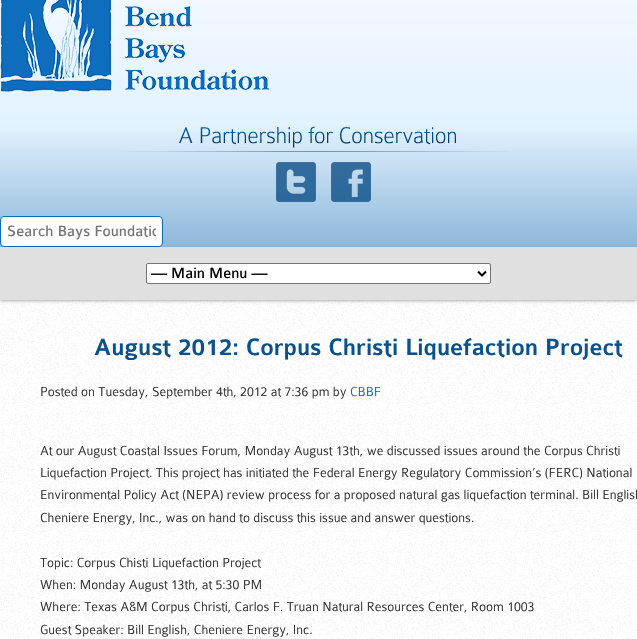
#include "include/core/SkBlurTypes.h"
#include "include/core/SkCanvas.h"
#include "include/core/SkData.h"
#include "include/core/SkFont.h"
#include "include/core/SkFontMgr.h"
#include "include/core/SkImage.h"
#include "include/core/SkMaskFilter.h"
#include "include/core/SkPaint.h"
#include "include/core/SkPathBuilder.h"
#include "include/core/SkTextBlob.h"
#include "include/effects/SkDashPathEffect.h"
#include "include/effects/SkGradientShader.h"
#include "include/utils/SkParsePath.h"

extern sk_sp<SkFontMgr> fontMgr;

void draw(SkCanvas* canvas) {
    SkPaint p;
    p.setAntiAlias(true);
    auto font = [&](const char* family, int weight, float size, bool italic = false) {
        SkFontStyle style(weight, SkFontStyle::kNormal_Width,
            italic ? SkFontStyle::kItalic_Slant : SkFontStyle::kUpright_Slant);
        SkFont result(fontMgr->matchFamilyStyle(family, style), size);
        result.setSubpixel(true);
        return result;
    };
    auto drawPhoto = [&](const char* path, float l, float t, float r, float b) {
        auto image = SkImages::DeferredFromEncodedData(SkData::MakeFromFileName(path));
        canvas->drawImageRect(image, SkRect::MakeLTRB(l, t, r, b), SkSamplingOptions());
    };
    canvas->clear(0xFFFFFFFF);
    {
        const SkColor colors[] = {0xFFF7FBFF, 0xFFE2F2FF, 0xFF6A9FCA};
        const float stops[] = {0, 0.5f, 1};
        const SkPoint ends[] = {{319, -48}, {319, 297}};
        p.setShader(SkGradientShader::MakeLinear(ends, colors, stops, 3, SkTileMode::kClamp));
        p.setAlpha(255);
    }
    canvas->drawRect(SkRect::MakeLTRB(0, 0, 637, 247), p);
    drawPhoto("media/1.png", 0, 0, 269, 92);
    drawPhoto("media/2.png", 126, 126, 510, 152);
    drawPhoto("media/3.png", 276, 162, 316, 202);
    drawPhoto("media/4.png", 331, 162, 371, 202);
    p.setShader(nullptr);
    p.setColor(0xFFFFFFFF);
    canvas->drawRoundRect(SkRect::MakeLTRB(0.5f, 216.5f, 162.5f, 246.5f), 3.5f, 3.5f, p);
    p.setStyle(SkPaint::kStroke_Style);
    p.setStrokeWidth(1);
    p.setColor(0xFF0E6DBD);
    canvas->drawRoundRect(SkRect::MakeLTRB(0.5f, 216.5f, 162.5f, 246.5f), 3.5f, 3.5f, p);
    canvas->save();
    canvas->clipRect(SkRect::MakeLTRB(7, 223, 156, 240));
    auto font1 = font("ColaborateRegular", 400, 16);
    p.setStyle(SkPaint::kFill_Style);
    p.setColor(0xFF757575);
    canvas->drawString("Search Bays Foundatio", 7, 236, font1, p);
    canvas->restore();
    drawPhoto("media/5.png", 0, 300, 637, 639);
    p.setColor(0x80000000);
    p.setMaskFilter(SkMaskFilter::MakeBlur(kNormal_SkBlurStyle, 2));
    canvas->drawRect(SkRect::MakeLTRB(0, 250, 637, 300), p);
    p.setMaskFilter(nullptr);
    p.setColor(0xFFE0E0E0);
    canvas->drawRect(SkRect::MakeLTRB(0, 247, 637, 300), p);
    p.setColor(0xFFFFFFFF);
    canvas->drawRoundRect(SkRect::MakeLTRB(146.5f, 263.5f, 490.5f, 283.5f), 1.5f, 1.5f, p);
    p.setStyle(SkPaint::kStroke_Style);
    p.setColor(0xFF767676);
    canvas->drawRoundRect(SkRect::MakeLTRB(146.5f, 263.5f, 490.5f, 283.5f), 1.5f, 1.5f, p);
    p.setStrokeWidth(2);
    p.setColor(0xFF000000);
    canvas->drawPath(SkPathBuilder().moveTo(478, 271.5f).lineTo(482, 275.5f).lineTo(486, 271.5f).detach(), p);
    p.setStyle(SkPaint::kFill_Style);
    canvas->drawString("— Main Menu —", 151, 278, font1, p);
    auto font2 = font("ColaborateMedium", 500, 25.2f);
    p.setColor(0xFF0A528E);
    canvas->drawString("August 2012: Corpus Christi Liquefaction Project", 94, 355, font2, p);
    auto font3 = font("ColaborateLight", 300, 14);
    p.setColor(0xFF333333);
    canvas->drawString("Posted on Tuesday, September 4th, 2012 at 7:36 pm by", 40, 396, font3, p);
    p.setColor(0xFF0E6DBD);
    canvas->drawString("CBBF", 350, 396, font3, p);
    p.setColor(0xFF333333);
    {
        const struct { const char* s; float x, y; } items[] = {
            {"At our August Coastal Issues Forum, Monday August 13th, we discussed issues around the Corpus Christi", 40, 455},
            {"Liquefaction Project. This project has initiated the Federal Energy Regulatory Commission’s (FERC) National", 40, 477},
            {"Environmental Policy Act (NEPA) review process for a proposed natural gas liquefaction terminal. Bill English", 40, 499},
            {"Cheniere Energy, Inc., was on hand to discuss this issue and answer questions.", 40, 522},
            {"Topic: Corpus Chisti Liquefaction Project", 40, 567},
            {"When: Monday August 13th, at 5:30 PM", 40, 589},
            {"Where: Texas A&M Corpus Christi, Carlos F. Truan Natural Resources Center, Room 1003", 40, 611},
            {"Guest Speaker: Bill English, Cheniere Energy, Inc.", 40, 634},
        };
        for (auto [s, x, y] : items) {
            canvas->drawString(s, x, y, font3, p);
        }
    }
}
